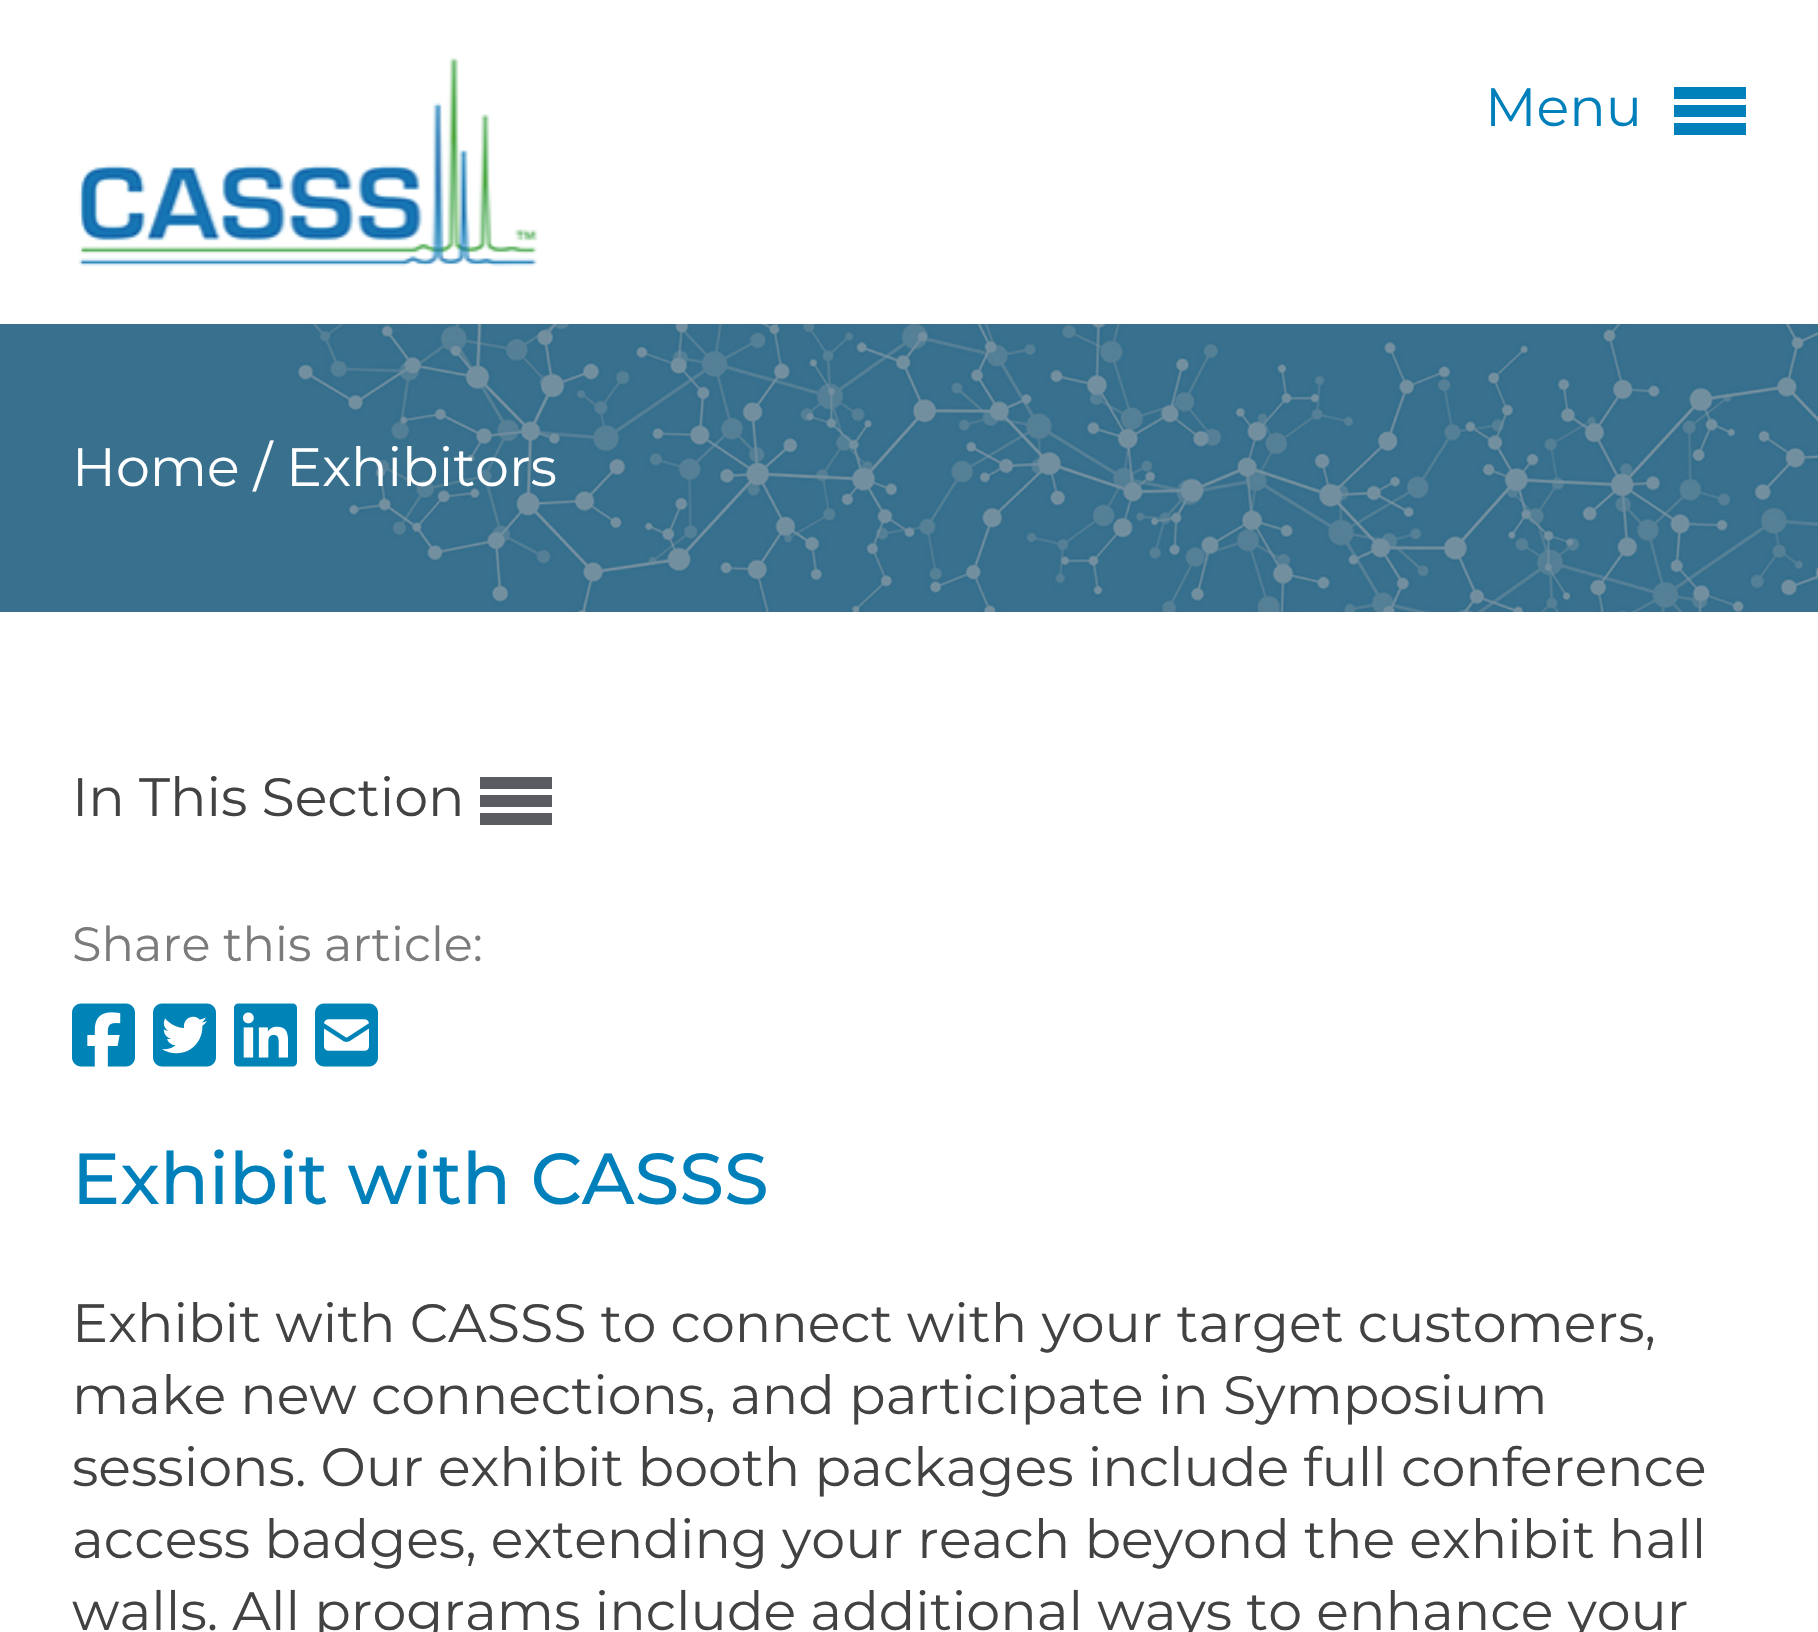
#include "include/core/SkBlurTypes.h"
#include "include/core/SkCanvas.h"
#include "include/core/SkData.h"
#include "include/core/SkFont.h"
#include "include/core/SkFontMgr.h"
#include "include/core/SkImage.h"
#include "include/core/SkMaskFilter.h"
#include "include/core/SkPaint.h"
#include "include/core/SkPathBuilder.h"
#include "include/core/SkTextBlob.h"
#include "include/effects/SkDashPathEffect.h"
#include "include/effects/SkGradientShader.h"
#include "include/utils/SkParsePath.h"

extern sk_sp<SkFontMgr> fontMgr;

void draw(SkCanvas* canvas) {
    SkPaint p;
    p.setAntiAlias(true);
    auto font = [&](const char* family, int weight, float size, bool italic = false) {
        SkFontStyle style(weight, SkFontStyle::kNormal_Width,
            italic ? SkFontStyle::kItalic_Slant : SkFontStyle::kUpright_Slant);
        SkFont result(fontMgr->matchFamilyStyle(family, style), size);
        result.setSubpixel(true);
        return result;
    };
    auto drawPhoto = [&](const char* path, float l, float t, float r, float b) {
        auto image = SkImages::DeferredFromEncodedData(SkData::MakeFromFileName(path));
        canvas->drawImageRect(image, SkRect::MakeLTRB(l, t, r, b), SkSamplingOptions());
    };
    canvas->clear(0xFFFFFFFF);
    drawPhoto("media/1.png", 78, 57, 538, 267);
    auto font1 = font("Montserrat", 400, 54);
    p.setColor(0xFF0080BB);
    canvas->drawString("Menu", 1485, 126, font1, p);
    {
        const struct { float l, t, r, b; SkColor color; } items[] = {
            {1674, 87, 1746, 99, 0xFF0080BB},
            {1674, 105, 1746, 117, 0xFF0080BB},
            {1674, 123, 1746, 135, 0xFF0080BB},
        };
        for (auto [l, t, r, b, color] : items) {
            p.setColor(color);
            canvas->drawRect(SkRect::MakeLTRB(l, t, r, b), p);
        }
    }
    drawPhoto("media/2.png", 0, 324, 1818, 612);
    p.setColor(0xFFFFFFFF);
    canvas->drawString("Home / Exhibitors", 72, 486, font1, p);
    p.setColor(0xFF424242);
    canvas->drawString("In This Section", 72, 816, font1, p);
    {
        const struct { float l, t, r, b; SkColor color; } items[] = {
            {480, 777, 552, 789, 0xFF5A5C61},
            {480, 795, 552, 807, 0xFF5A5C61},
            {480, 813, 552, 825, 0xFF5A5C61},
        };
        for (auto [l, t, r, b, color] : items) {
            p.setColor(color);
            canvas->drawRect(SkRect::MakeLTRB(l, t, r, b), p);
        }
    }
    auto font2 = font("Montserrat", 400, 48);
    p.setColor(0xFF7B7B7B);
    canvas->drawString("Share this article:", 72, 961, font2, p);
    drawPhoto("media/3.png", 72, 1003, 135, 1067);
    drawPhoto("media/4.png", 153, 1003, 216, 1067);
    drawPhoto("media/5.png", 234, 1003, 297, 1067);
    drawPhoto("media/6.png", 315, 1003, 378, 1067);
    auto font3 = font("Montserrat", 500, 72);
    p.setColor(0xFF0080BB);
    canvas->drawString("Exhibit with CASSS", 72, 1204, font3, p);
    p.setColor(0xFF424242);
    {
        const struct { const char* s; float x, y; } items[] = {
            {"Exhibit with CASSS to connect with your target customers,", 72, 1342},
            {"make new connections, and participate in Symposium", 72, 1414},
            {"sessions. Our exhibit booth packages include full conference", 72, 1486},
            {"access badges, extending your reach beyond the exhibit hall", 72, 1558},
            {"walls. All programs include additional ways to enhance your", 72, 1630},
        };
        for (auto [s, x, y] : items) {
            canvas->drawString(s, x, y, font1, p);
        }
    }
}
